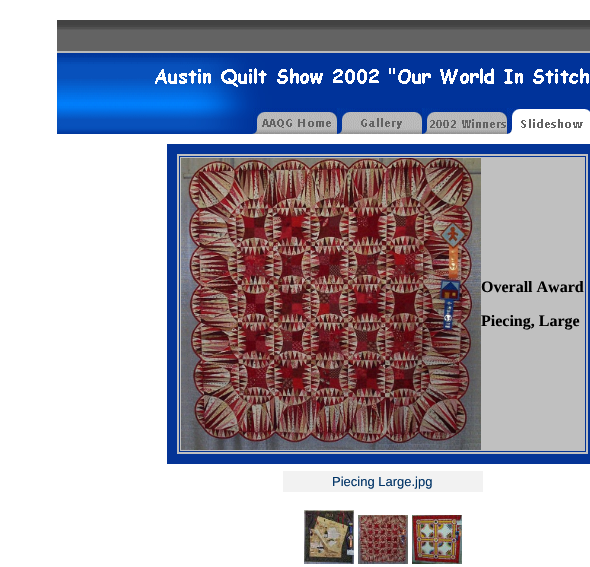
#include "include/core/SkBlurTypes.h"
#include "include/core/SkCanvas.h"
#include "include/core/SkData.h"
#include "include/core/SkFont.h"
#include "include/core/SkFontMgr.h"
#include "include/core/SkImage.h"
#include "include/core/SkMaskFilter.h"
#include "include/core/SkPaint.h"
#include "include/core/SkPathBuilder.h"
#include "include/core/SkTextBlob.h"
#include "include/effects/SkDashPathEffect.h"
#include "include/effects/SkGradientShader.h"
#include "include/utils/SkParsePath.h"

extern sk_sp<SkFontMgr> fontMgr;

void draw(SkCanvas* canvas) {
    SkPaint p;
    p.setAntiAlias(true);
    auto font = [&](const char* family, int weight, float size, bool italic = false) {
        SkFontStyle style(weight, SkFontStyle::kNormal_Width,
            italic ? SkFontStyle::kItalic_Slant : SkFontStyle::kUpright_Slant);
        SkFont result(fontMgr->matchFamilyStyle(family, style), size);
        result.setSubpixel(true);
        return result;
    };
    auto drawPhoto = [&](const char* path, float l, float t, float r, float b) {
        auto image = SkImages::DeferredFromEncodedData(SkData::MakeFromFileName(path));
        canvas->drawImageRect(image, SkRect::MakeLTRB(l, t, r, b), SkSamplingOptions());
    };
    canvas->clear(0xFFFFFFFF);
    drawPhoto("media/1.png", 57, 20, 590, 108);
    drawPhoto("media/2.png", 57, 108, 252, 134);
    drawPhoto("media/3.png", 252, 108, 337, 134);
    drawPhoto("media/4.png", 337, 108, 422, 134);
    drawPhoto("media/5.png", 422, 108, 507, 134);
    drawPhoto("media/6.png", 507, 108, 590, 134);
    p.setColor(0xFFC0C0C0);
    canvas->drawRect(SkRect::MakeLTRB(172, 149, 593, 459), p);
    p.setStyle(SkPaint::kStroke_Style);
    p.setStrokeWidth(10);
    p.setColor(0xFF043496);
    canvas->drawRect(SkRect::MakeLTRB(172, 149, 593, 459), p);
    p.setStrokeWidth(1);
    canvas->drawRect(SkRect::MakeLTRB(179.5f, 156.5f, 585.5f, 451.5f), p);
    drawPhoto("media/7.png", 181, 158, 481, 450);
    auto font1 = font("Liberation Serif", 700, 16);
    p.setStyle(SkPaint::kFill_Style);
    p.setColor(0xFF000000);
    canvas->drawString("Overall Award", 481, 292, font1, p);
    canvas->drawString("Piecing, Large", 481, 326, font1, p);
    p.setColor(0xFFF2F2F2);
    canvas->drawRect(SkRect::MakeLTRB(283, 471, 483, 492), p);
    auto font2 = font("Liberation Sans", 400, 13);
    p.setColor(0xFF003366);
    canvas->drawString("Piecing Large.jpg", 332, 486, font2, p);
    drawPhoto("media/8.png", 304, 510, 354, 564);
    drawPhoto("media/9.png", 358, 515, 408, 564);
    drawPhoto("media/10.png", 412, 515, 462, 564);
}
